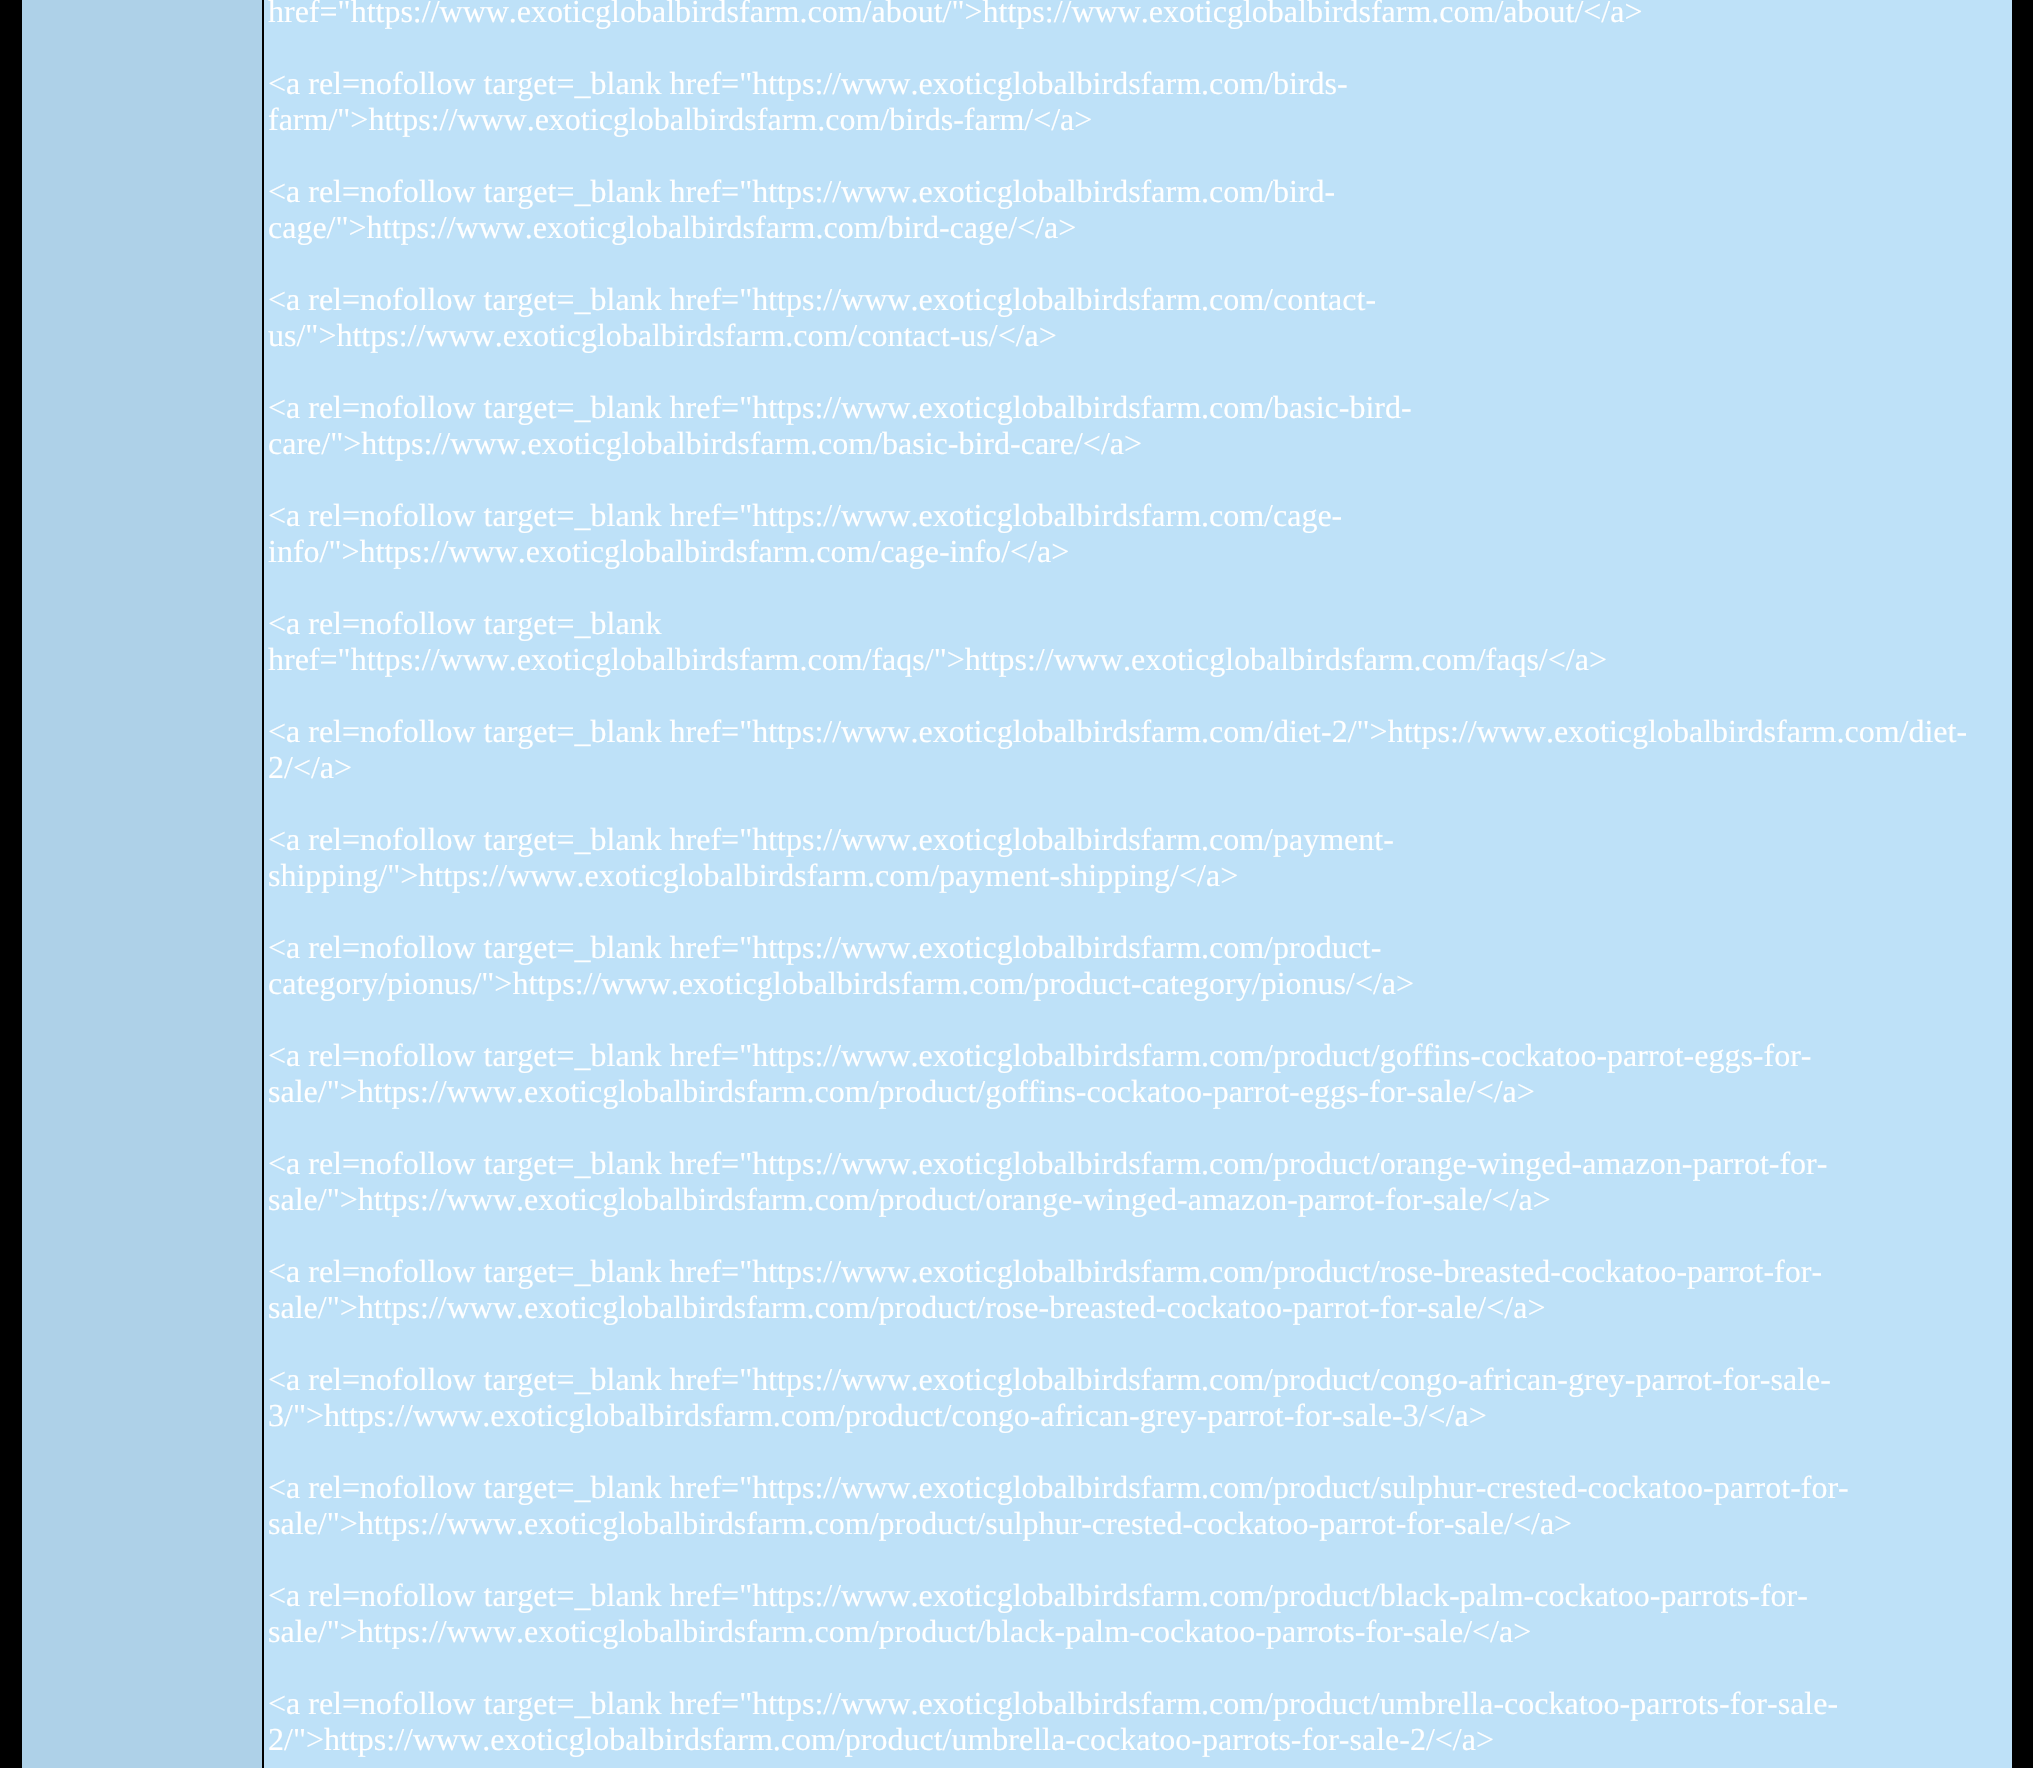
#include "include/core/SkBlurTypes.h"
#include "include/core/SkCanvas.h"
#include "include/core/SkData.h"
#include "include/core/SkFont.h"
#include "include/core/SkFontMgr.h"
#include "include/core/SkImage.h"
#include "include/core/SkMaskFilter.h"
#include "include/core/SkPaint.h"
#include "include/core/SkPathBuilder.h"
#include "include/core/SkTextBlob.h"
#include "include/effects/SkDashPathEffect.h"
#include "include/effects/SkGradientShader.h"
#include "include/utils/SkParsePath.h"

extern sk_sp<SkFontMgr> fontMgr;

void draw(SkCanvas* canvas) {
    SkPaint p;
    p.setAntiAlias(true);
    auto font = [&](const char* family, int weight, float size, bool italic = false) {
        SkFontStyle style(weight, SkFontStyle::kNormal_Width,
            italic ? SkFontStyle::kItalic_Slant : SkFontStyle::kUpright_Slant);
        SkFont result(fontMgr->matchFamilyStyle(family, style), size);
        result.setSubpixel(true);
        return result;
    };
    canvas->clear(0xFF000000);
    p.setColor(0xFFAED1E8);
    canvas->drawRect(SkRect::MakeLTRB(22, 0, 262, 1768), p);
    p.setColor(0xFFBEE1F8);
    canvas->drawRect(SkRect::MakeLTRB(264, 0, 2012, 1768), p);
    auto font1 = font("Liberation Serif", 400, 32);
    p.setColor(0xFFFFFFFF);
    {
        const struct { const char* s; float x, y; } items[] = {
            {"href=\"https://www.exoticglobalbirdsfarm.com/about/\">https://www.exoticglobalbirdsfarm.com/about/</a>", 268, 22},
            {"<a rel=nofollow target=_blank href=\"https://www.exoticglobalbirdsfarm.com/birds-", 268, 94},
            {"farm/\">https://www.exoticglobalbirdsfarm.com/birds-farm/</a>", 268, 130},
            {"<a rel=nofollow target=_blank href=\"https://www.exoticglobalbirdsfarm.com/bird-", 268, 202},
            {"cage/\">https://www.exoticglobalbirdsfarm.com/bird-cage/</a>", 268, 238},
            {"<a rel=nofollow target=_blank href=\"https://www.exoticglobalbirdsfarm.com/contact-", 268, 310},
            {"us/\">https://www.exoticglobalbirdsfarm.com/contact-us/</a>", 268, 346},
            {"<a rel=nofollow target=_blank href=\"https://www.exoticglobalbirdsfarm.com/basic-bird-", 268, 418},
            {"care/\">https://www.exoticglobalbirdsfarm.com/basic-bird-care/</a>", 268, 454},
            {"<a rel=nofollow target=_blank href=\"https://www.exoticglobalbirdsfarm.com/cage-", 268, 526},
            {"info/\">https://www.exoticglobalbirdsfarm.com/cage-info/</a>", 268, 562},
            {"<a rel=nofollow target=_blank", 268, 634},
            {"href=\"https://www.exoticglobalbirdsfarm.com/faqs/\">https://www.exoticglobalbirdsfarm.com/faqs/</a>", 268, 670},
            {"<a rel=nofollow target=_blank href=\"https://www.exoticglobalbirdsfarm.com/diet-2/\">https://www.exoticglobalbirdsfarm.com/diet-", 268, 742},
            {"2/</a>", 268, 778},
            {"<a rel=nofollow target=_blank href=\"https://www.exoticglobalbirdsfarm.com/payment-", 268, 850},
            {"shipping/\">https://www.exoticglobalbirdsfarm.com/payment-shipping/</a>", 268, 886},
            {"<a rel=nofollow target=_blank href=\"https://www.exoticglobalbirdsfarm.com/product-", 268, 958},
            {"category/pionus/\">https://www.exoticglobalbirdsfarm.com/product-category/pionus/</a>", 268, 994},
            {"<a rel=nofollow target=_blank href=\"https://www.exoticglobalbirdsfarm.com/product/goffins-cockatoo-parrot-eggs-for-", 268, 1066},
            {"sale/\">https://www.exoticglobalbirdsfarm.com/product/goffins-cockatoo-parrot-eggs-for-sale/</a>", 268, 1102},
            {"<a rel=nofollow target=_blank href=\"https://www.exoticglobalbirdsfarm.com/product/orange-winged-amazon-parrot-for-", 268, 1174},
            {"sale/\">https://www.exoticglobalbirdsfarm.com/product/orange-winged-amazon-parrot-for-sale/</a>", 268, 1210},
            {"<a rel=nofollow target=_blank href=\"https://www.exoticglobalbirdsfarm.com/product/rose-breasted-cockatoo-parrot-for-", 268, 1282},
            {"sale/\">https://www.exoticglobalbirdsfarm.com/product/rose-breasted-cockatoo-parrot-for-sale/</a>", 268, 1318},
            {"<a rel=nofollow target=_blank href=\"https://www.exoticglobalbirdsfarm.com/product/congo-african-grey-parrot-for-sale-", 268, 1390},
            {"3/\">https://www.exoticglobalbirdsfarm.com/product/congo-african-grey-parrot-for-sale-3/</a>", 268, 1426},
            {"<a rel=nofollow target=_blank href=\"https://www.exoticglobalbirdsfarm.com/product/sulphur-crested-cockatoo-parrot-for-", 268, 1498},
            {"sale/\">https://www.exoticglobalbirdsfarm.com/product/sulphur-crested-cockatoo-parrot-for-sale/</a>", 268, 1534},
            {"<a rel=nofollow target=_blank href=\"https://www.exoticglobalbirdsfarm.com/product/black-palm-cockatoo-parrots-for-", 268, 1606},
            {"sale/\">https://www.exoticglobalbirdsfarm.com/product/black-palm-cockatoo-parrots-for-sale/</a>", 268, 1642},
            {"<a rel=nofollow target=_blank href=\"https://www.exoticglobalbirdsfarm.com/product/umbrella-cockatoo-parrots-for-sale-", 268, 1714},
            {"2/\">https://www.exoticglobalbirdsfarm.com/product/umbrella-cockatoo-parrots-for-sale-2/</a>", 268, 1750},
        };
        for (auto [s, x, y] : items) {
            canvas->drawString(s, x, y, font1, p);
        }
    }
}
